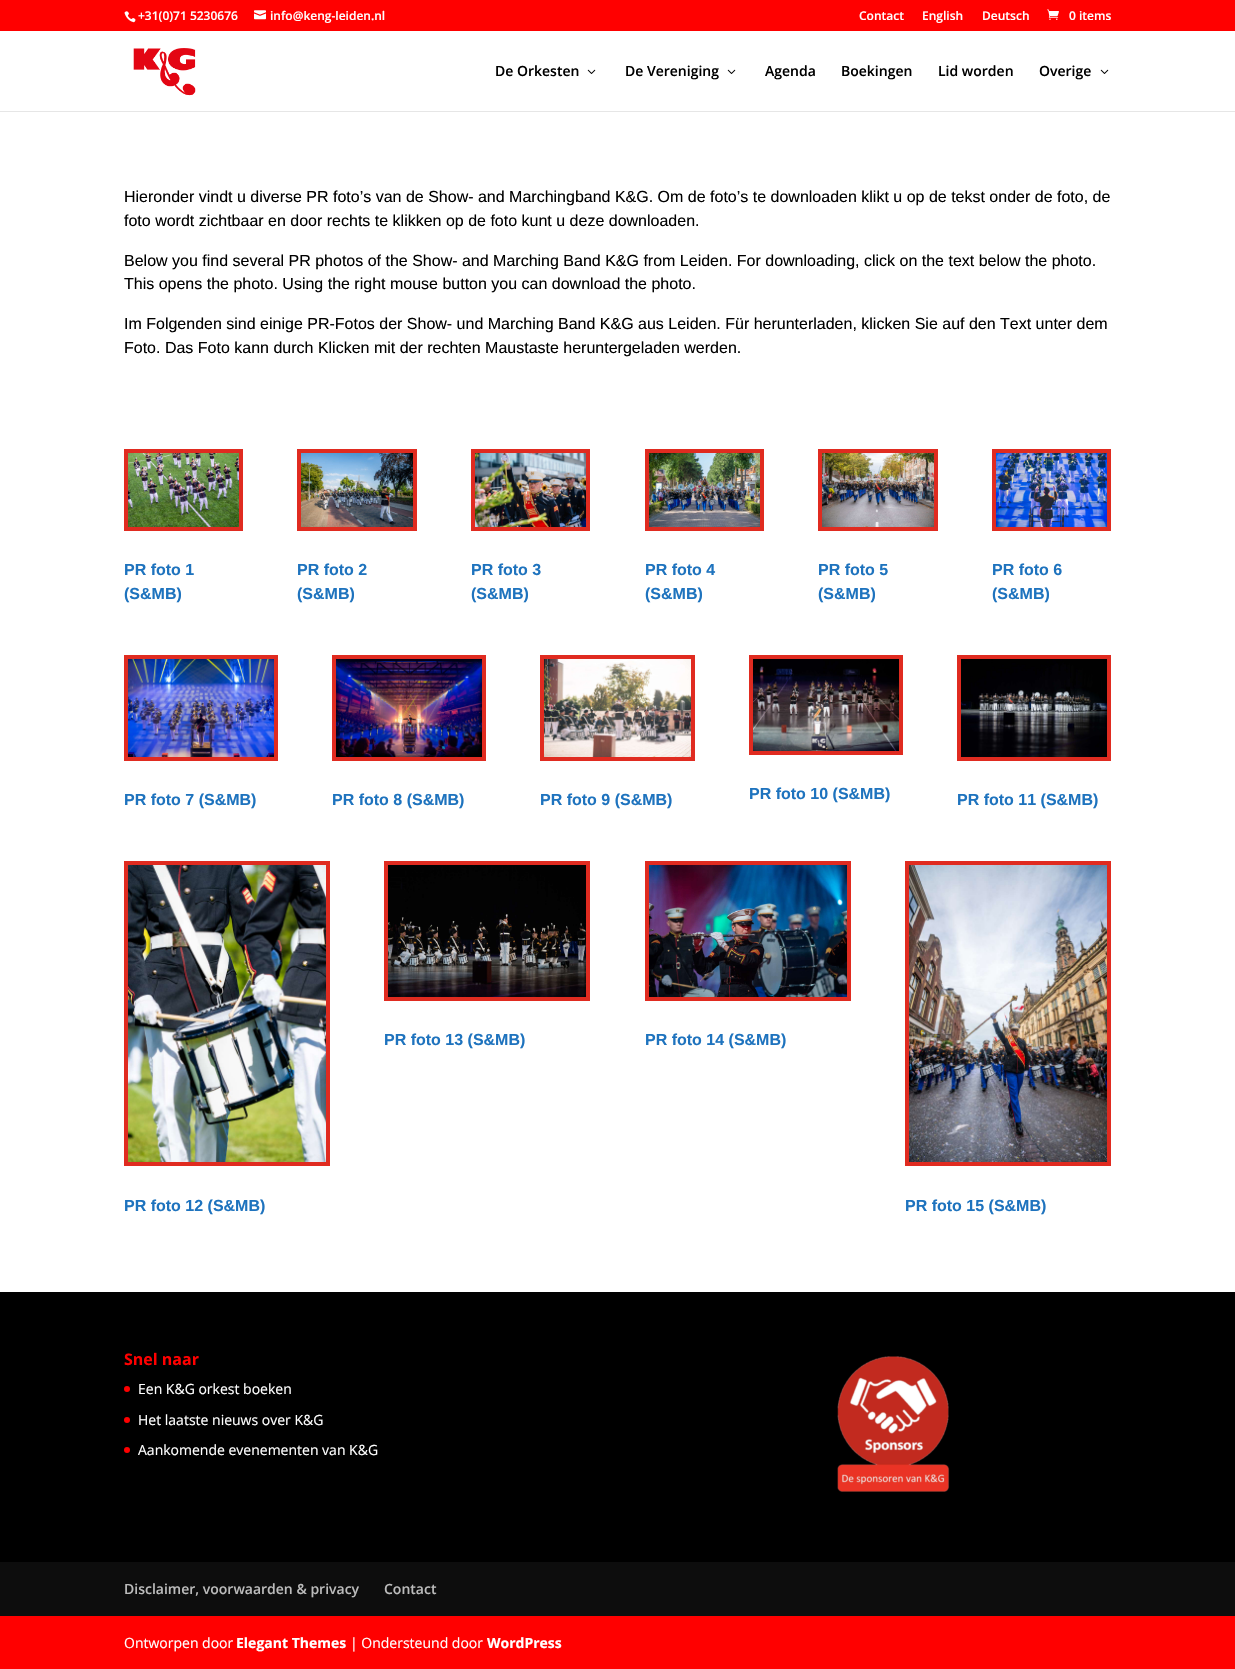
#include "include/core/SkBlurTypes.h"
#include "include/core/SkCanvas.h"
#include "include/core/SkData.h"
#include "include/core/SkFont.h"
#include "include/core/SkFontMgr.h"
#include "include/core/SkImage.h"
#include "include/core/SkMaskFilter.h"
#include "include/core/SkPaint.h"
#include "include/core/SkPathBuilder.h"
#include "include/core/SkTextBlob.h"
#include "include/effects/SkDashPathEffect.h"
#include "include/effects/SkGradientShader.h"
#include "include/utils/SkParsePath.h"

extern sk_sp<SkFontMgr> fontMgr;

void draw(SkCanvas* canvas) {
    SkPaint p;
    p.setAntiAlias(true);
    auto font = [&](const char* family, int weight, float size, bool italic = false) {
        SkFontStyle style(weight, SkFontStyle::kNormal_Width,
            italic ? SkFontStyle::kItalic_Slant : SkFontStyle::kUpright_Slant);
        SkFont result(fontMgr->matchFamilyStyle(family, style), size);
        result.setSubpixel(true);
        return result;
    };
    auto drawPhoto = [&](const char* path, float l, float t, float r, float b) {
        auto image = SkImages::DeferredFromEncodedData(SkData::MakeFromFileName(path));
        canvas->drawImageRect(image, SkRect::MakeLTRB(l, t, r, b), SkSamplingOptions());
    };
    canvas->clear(0xFFFFFFFF);
    p.setColor(0xFFFF0000);
    canvas->drawRect(SkRect::MakeLTRB(0, 0, 1235, 31), p);
    drawPhoto("media/1.png", 124, 11, 136, 23);
    auto font1 = font("Open Sans", 600, 12);
    p.setColor(0xFFFFFFFF);
    canvas->drawString("+31(0)71 5230676", 138, 20, font1, p);
    drawPhoto("media/2.png", 254, 10, 266, 20);
    {
        const struct { const char* s; float x, y; } items[] = {
            {"info@keng-leiden.nl", 270, 20},
            {"Contact", 859, 20},
            {"English", 922, 20},
            {"Deutsch", 982, 20},
        };
        for (auto [s, x, y] : items) {
            canvas->drawString(s, x, y, font1, p);
        }
    }
    drawPhoto("media/3.png", 1047, 9, 1059, 20);
    canvas->drawString("0 items", 1069, 20, font1, p);
    p.setColor(0xFFE6E6E6);
    canvas->drawRect(SkRect::MakeLTRB(0, 111, 1235, 112), p);
    drawPhoto("media/4.png", 133, 48, 196, 96);
    auto font2 = font("Open Sans", 600, 14);
    p.setColor(0xFF000000);
    canvas->drawString("De Orkesten", 495, 76, font2, p);
    drawPhoto("media/5.png", 587, 69, 596, 74);
    canvas->drawString("De Vereniging", 625, 76, font2, p);
    drawPhoto("media/5.png", 727, 69, 736, 74);
    {
        const struct { const char* s; float x, y; } items[] = {
            {"Agenda", 765, 76},
            {"Boekingen", 841, 76},
            {"Lid worden", 938, 76},
            {"Overige", 1039, 76},
        };
        for (auto [s, x, y] : items) {
            canvas->drawString(s, x, y, font2, p);
        }
    }
    drawPhoto("media/5.png", 1100, 69, 1109, 74);
    auto font3 = font("Liberation Sans", 400, 16);
    {
        const struct { const char* s; float x, y; } items[] = {
            {"Hieronder vindt u diverse PR foto’s van de Show- and Marchingband K&G. Om de foto’s te downloaden klikt u op de tekst onder de foto, de", 124, 202},
            {"foto wordt zichtbaar en door rechts te klikken op de foto kunt u deze downloaden.", 124, 226},
            {"Below you find several PR photos of the Show- and Marching Band K&G from Leiden. For downloading, click on the text below the photo.", 124, 266},
            {"This opens the photo. Using the right mouse button you can download the photo.", 124, 289},
            {"Im Folgenden sind einige PR-Fotos der Show- und Marching Band K&G aus Leiden. Für herunterladen, klicken Sie auf den Text unter dem", 124, 329},
            {"Foto. Das Foto kann durch Klicken mit der rechten Maustaste heruntergeladen werden.", 124, 353},
        };
        for (auto [s, x, y] : items) {
            canvas->drawString(s, x, y, font3, p);
        }
    }
    p.setStyle(SkPaint::kStroke_Style);
    p.setStrokeWidth(4);
    p.setColor(0xFFE02B20);
    canvas->drawRect(SkRect::MakeLTRB(126, 451, 241, 529), p);
    drawPhoto("media/6.png", 128, 453, 239, 527);
    auto font4 = font("Liberation Sans", 700, 16);
    p.setStyle(SkPaint::kFill_Style);
    p.setColor(0xFF1E73BE);
    canvas->drawString("PR foto 1", 124, 575, font4, p);
    canvas->drawString("(S&MB)", 124, 599, font4, p);
    p.setStyle(SkPaint::kStroke_Style);
    p.setColor(0xFFE02B20);
    canvas->drawRect(SkRect::MakeLTRB(299, 451, 415, 529), p);
    drawPhoto("media/7.png", 301, 453, 413, 527);
    p.setStyle(SkPaint::kFill_Style);
    p.setColor(0xFF1E73BE);
    canvas->drawString("PR foto 2", 297, 575, font4, p);
    canvas->drawString("(S&MB)", 297, 599, font4, p);
    p.setStyle(SkPaint::kStroke_Style);
    p.setColor(0xFFE02B20);
    canvas->drawRect(SkRect::MakeLTRB(473, 451, 588, 529), p);
    drawPhoto("media/8.png", 475, 453, 586, 527);
    p.setStyle(SkPaint::kFill_Style);
    p.setColor(0xFF1E73BE);
    canvas->drawString("PR foto 3", 471, 575, font4, p);
    canvas->drawString("(S&MB)", 471, 599, font4, p);
    p.setStyle(SkPaint::kStroke_Style);
    p.setColor(0xFFE02B20);
    canvas->drawRect(SkRect::MakeLTRB(647, 451, 762, 529), p);
    drawPhoto("media/9.png", 649, 453, 760, 527);
    p.setStyle(SkPaint::kFill_Style);
    p.setColor(0xFF1E73BE);
    canvas->drawString("PR foto 4", 645, 575, font4, p);
    canvas->drawString("(S&MB)", 645, 599, font4, p);
    p.setStyle(SkPaint::kStroke_Style);
    p.setColor(0xFFE02B20);
    canvas->drawRect(SkRect::MakeLTRB(820, 451, 936, 529), p);
    drawPhoto("media/10.png", 822, 453, 934, 527);
    p.setStyle(SkPaint::kFill_Style);
    p.setColor(0xFF1E73BE);
    canvas->drawString("PR foto 5", 818, 575, font4, p);
    canvas->drawString("(S&MB)", 818, 599, font4, p);
    p.setStyle(SkPaint::kStroke_Style);
    p.setColor(0xFFE02B20);
    canvas->drawRect(SkRect::MakeLTRB(994, 451, 1109, 529), p);
    drawPhoto("media/11.png", 996, 453, 1107, 527);
    p.setStyle(SkPaint::kFill_Style);
    p.setColor(0xFF1E73BE);
    canvas->drawString("PR foto 6", 992, 575, font4, p);
    canvas->drawString("(S&MB)", 992, 599, font4, p);
    p.setStyle(SkPaint::kStroke_Style);
    p.setColor(0xFFE02B20);
    canvas->drawRect(SkRect::MakeLTRB(126, 657, 276, 759), p);
    drawPhoto("media/12.png", 128, 659, 274, 757);
    p.setStyle(SkPaint::kFill_Style);
    p.setColor(0xFF1E73BE);
    canvas->drawString("PR foto 7 (S&MB)", 124, 805, font4, p);
    p.setStyle(SkPaint::kStroke_Style);
    p.setColor(0xFFE02B20);
    canvas->drawRect(SkRect::MakeLTRB(334, 657, 484, 759), p);
    drawPhoto("media/13.png", 336, 659, 482, 757);
    p.setStyle(SkPaint::kFill_Style);
    p.setColor(0xFF1E73BE);
    canvas->drawString("PR foto 8 (S&MB)", 332, 805, font4, p);
    p.setStyle(SkPaint::kStroke_Style);
    p.setColor(0xFFE02B20);
    canvas->drawRect(SkRect::MakeLTRB(542, 657, 693, 759), p);
    drawPhoto("media/14.png", 544, 659, 691, 757);
    p.setStyle(SkPaint::kFill_Style);
    p.setColor(0xFF1E73BE);
    canvas->drawString("PR foto 9 (S&MB)", 540, 805, font4, p);
    p.setStyle(SkPaint::kStroke_Style);
    p.setColor(0xFFE02B20);
    canvas->drawRect(SkRect::MakeLTRB(751, 657, 901, 753), p);
    drawPhoto("media/15.png", 753, 659, 899, 751);
    p.setStyle(SkPaint::kFill_Style);
    p.setColor(0xFF1E73BE);
    canvas->drawString("PR foto 10 (S&MB)", 749, 799, font4, p);
    p.setStyle(SkPaint::kStroke_Style);
    p.setColor(0xFFE02B20);
    canvas->drawRect(SkRect::MakeLTRB(959, 657, 1109, 759), p);
    drawPhoto("media/16.png", 961, 659, 1107, 757);
    p.setStyle(SkPaint::kFill_Style);
    p.setColor(0xFF1E73BE);
    canvas->drawString("PR foto 11 (S&MB)", 957, 805, font4, p);
    p.setStyle(SkPaint::kStroke_Style);
    p.setColor(0xFFE02B20);
    canvas->drawRect(SkRect::MakeLTRB(386, 863, 588, 999), p);
    drawPhoto("media/17.png", 388, 865, 586, 997);
    p.setStyle(SkPaint::kFill_Style);
    p.setColor(0xFF1E73BE);
    canvas->drawString("PR foto 13 (S&MB)", 384, 1045, font4, p);
    p.setStyle(SkPaint::kStroke_Style);
    p.setColor(0xFFE02B20);
    canvas->drawRect(SkRect::MakeLTRB(647, 863, 849, 999), p);
    drawPhoto("media/18.png", 649, 865, 847, 997);
    p.setStyle(SkPaint::kFill_Style);
    p.setColor(0xFF1E73BE);
    canvas->drawString("PR foto 14 (S&MB)", 645, 1045, font4, p);
    p.setStyle(SkPaint::kStroke_Style);
    p.setColor(0xFFE02B20);
    canvas->drawRect(SkRect::MakeLTRB(126, 863, 328, 1164), p);
    drawPhoto("media/19.png", 128, 865, 326, 1162);
    p.setStyle(SkPaint::kFill_Style);
    p.setColor(0xFF1E73BE);
    canvas->drawString("PR foto 12 (S&MB)", 124, 1211, font4, p);
    p.setStyle(SkPaint::kStroke_Style);
    p.setColor(0xFFE02B20);
    canvas->drawRect(SkRect::MakeLTRB(907, 863, 1109, 1164), p);
    drawPhoto("media/20.png", 909, 865, 1107, 1162);
    p.setStyle(SkPaint::kFill_Style);
    p.setColor(0xFF1E73BE);
    canvas->drawString("PR foto 15 (S&MB)", 905, 1211, font4, p);
    p.setColor(0xFF000000);
    canvas->drawRect(SkRect::MakeLTRB(0, 1292, 1235, 1562), p);
    auto font5 = font("Open Sans", 700, 16);
    p.setColor(0xFFFF0000);
    canvas->drawString("Snel naar", 124, 1365, font5, p);
    canvas->drawCircle(127, 1389, 3, p);
    auto font6 = font("Open Sans", 400, 14);
    p.setColor(0xFFFFFFFF);
    canvas->drawString("Een K&G orkest boeken", 138, 1394, font6, p);
    p.setColor(0xFFFF0000);
    canvas->drawCircle(127, 1420, 3, p);
    p.setColor(0xFFFFFFFF);
    canvas->drawString("Het laatste nieuws over K&G", 138, 1425, font6, p);
    p.setColor(0xFFFF0000);
    canvas->drawCircle(127, 1450, 3, p);
    p.setColor(0xFFFFFFFF);
    canvas->drawString("Aankomende evenementen van K&G", 138, 1455, font6, p);
    drawPhoto("media/21.png", 837, 1356, 950, 1492);
    p.setColor(0xFF0D0D0D);
    canvas->drawRect(SkRect::MakeLTRB(0, 1562, 1235, 1616), p);
    p.setColor(0xFFBBBBBB);
    canvas->drawString("Disclaimer, voorwaarden & privacy", 124, 1594, font2, p);
    canvas->drawString("Contact", 384, 1594, font2, p);
    p.setColor(0xFFFF0000);
    canvas->drawRect(SkRect::MakeLTRB(0, 1616, 1235, 1669), p);
    p.setColor(0xFFFFFFFF);
    canvas->drawString("Ontworpen door", 124, 1648, font6, p);
    auto font7 = font("Open Sans", 700, 14);
    canvas->drawString("Elegant Themes", 236, 1648, font7, p);
    canvas->drawString("| Ondersteund door", 350, 1648, font6, p);
    canvas->drawString("WordPress", 487, 1648, font7, p);
}
